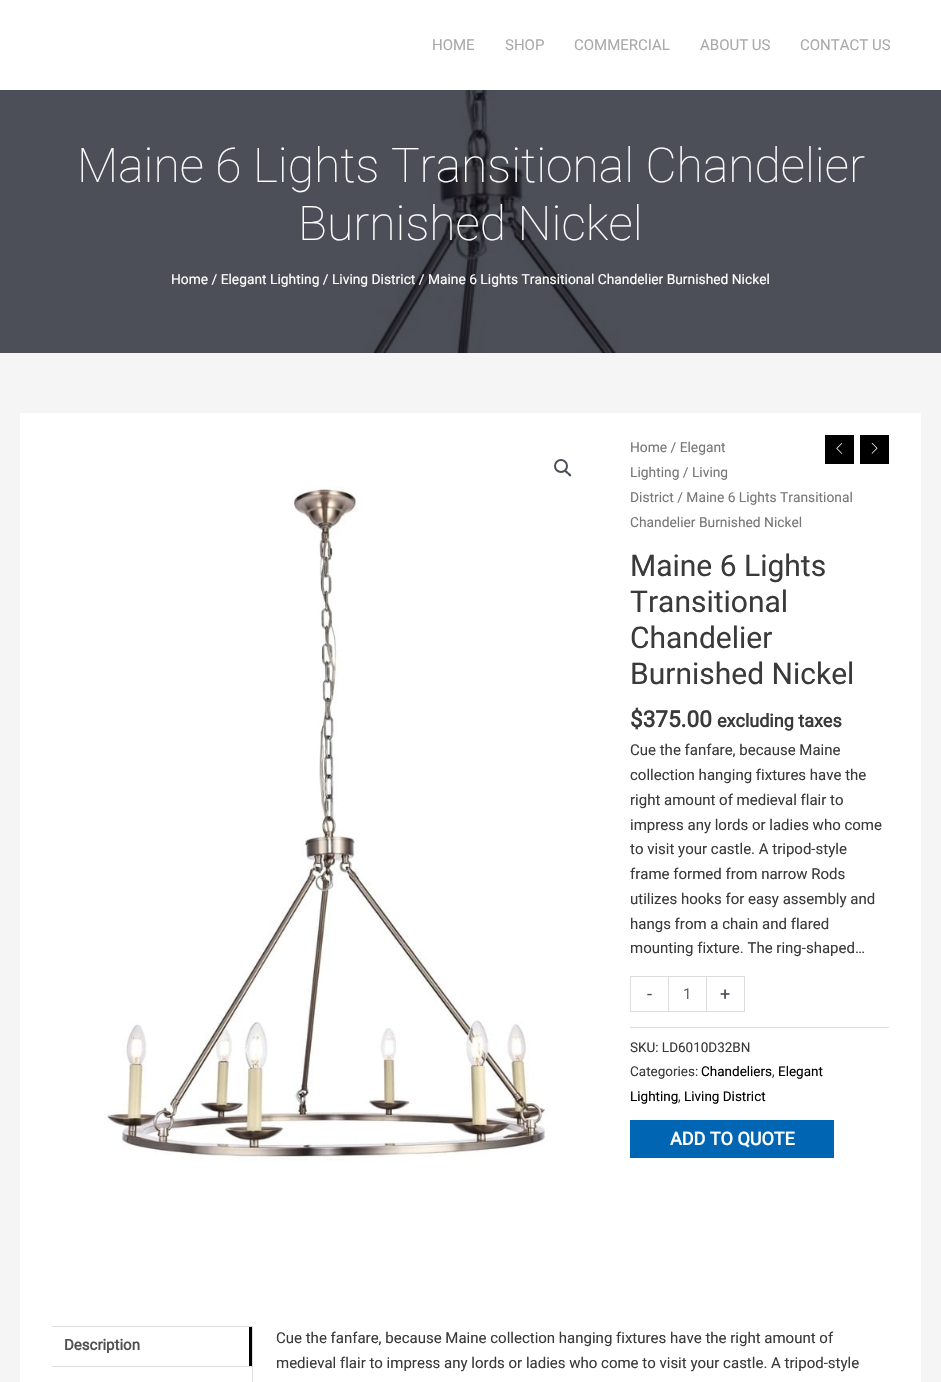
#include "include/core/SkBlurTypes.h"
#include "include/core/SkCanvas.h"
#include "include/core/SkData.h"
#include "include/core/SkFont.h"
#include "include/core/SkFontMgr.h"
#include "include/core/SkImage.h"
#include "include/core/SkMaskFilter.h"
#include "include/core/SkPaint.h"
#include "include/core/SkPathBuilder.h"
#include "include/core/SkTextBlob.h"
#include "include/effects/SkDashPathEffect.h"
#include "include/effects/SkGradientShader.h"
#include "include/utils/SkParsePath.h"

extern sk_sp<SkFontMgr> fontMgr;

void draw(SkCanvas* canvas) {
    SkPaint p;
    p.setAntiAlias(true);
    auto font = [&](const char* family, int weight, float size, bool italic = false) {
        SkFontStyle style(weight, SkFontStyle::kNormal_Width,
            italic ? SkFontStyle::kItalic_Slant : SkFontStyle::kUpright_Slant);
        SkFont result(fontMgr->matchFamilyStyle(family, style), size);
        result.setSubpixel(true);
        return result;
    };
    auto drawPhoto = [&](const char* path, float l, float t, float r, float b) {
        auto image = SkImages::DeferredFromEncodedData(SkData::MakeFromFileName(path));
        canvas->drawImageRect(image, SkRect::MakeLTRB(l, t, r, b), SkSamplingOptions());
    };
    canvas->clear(0xFFF5F5F5);
    drawPhoto("media/1.png", 0, 90, 941, 353);
    p.setColor(0xFFFFFFFF);
    canvas->drawRect(SkRect::MakeLTRB(0, 0, 941, 90), p);
    auto font1 = font("Roboto", 400, 15);
    p.setColor(0xFFAAAAAA);
    {
        const struct { const char* s; float x, y; } items[] = {
            {"HOME", 432, 50},
            {"SHOP", 505, 50},
            {"COMMERCIAL", 574, 50},
            {"ABOUT US", 700, 50},
            {"CONTACT US", 800, 50},
        };
        for (auto [s, x, y] : items) {
            canvas->drawString(s, x, y, font1, p);
        }
    }
    auto font2 = font("Roboto", 100, 48);
    p.setColor(0xFFFFFFFF);
    canvas->drawString("Maine 6 Lights Transitional Chandelier", 77, 182, font2, p);
    canvas->drawString("Burnished Nickel", 298, 240, font2, p);
    auto font3 = font("Roboto", 400, 13.8f);
    canvas->drawString("Home / Elegant Lighting / Living District / Maine 6 Lights Transitional Chandelier Burnished Nickel", 171, 284, font3, p);
    canvas->drawRect(SkRect::MakeLTRB(20, 413, 921, 1382), p);
    p.setStyle(SkPaint::kStroke_Style);
    p.setStrokeWidth(2);
    p.setColor(0xFF4B4F58);
    canvas->drawCircle(561, 466, 6, p);
    p.setStyle(SkPaint::kFill_Style);
    canvas->drawPath(SkPathBuilder().moveTo(565, 470.5f).cubicTo(566.5f, 469.5f, 568, 472, 568.5f, 472.5f).cubicTo(569.5f, 473, 572, 475, 571, 476).cubicTo(569.5f, 477.5f, 568, 474.5f, 567.5f, 474).cubicTo(566.5f, 473.5f, 564, 471.5f, 565, 470.5f).close().detach(), p);
    drawPhoto("media/2.png", 106, 486, 549, 1162);
    p.setColor(0xFF777777);
    {
        const struct { const char* s; float x, y; } items[] = {
            {"Home / Elegant", 630, 452},
            {"Lighting / Living", 630, 477},
            {"District / Maine 6 Lights Transitional", 630, 502},
            {"Chandelier Burnished Nickel", 630, 527},
        };
        for (auto [s, x, y] : items) {
            canvas->drawString(s, x, y, font3, p);
        }
    }
    p.setColor(0xFF000000);
    canvas->drawRect(SkRect::MakeLTRB(825, 435, 854, 464), p);
    drawPhoto("media/3.png", 836, 443, 843, 454);
    canvas->drawRect(SkRect::MakeLTRB(860, 435, 889, 464), p);
    drawPhoto("media/4.png", 871, 442, 878, 454);
    auto font4 = font("Roboto", 400, 30);
    p.setColor(0xFF3A3A3A);
    {
        const struct { const char* s; float x, y; } items[] = {
            {"Maine 6 Lights", 630, 576},
            {"Transitional", 630, 612},
            {"Chandelier", 630, 648},
            {"Burnished Nickel", 630, 684},
        };
        for (auto [s, x, y] : items) {
            canvas->drawString(s, x, y, font4, p);
        }
    }
    auto font5 = font("Roboto", 700, 22.5f);
    canvas->drawString("$375.00", 630, 727, font5, p);
    auto font6 = font("Roboto", 700, 18);
    canvas->drawString("excluding taxes", 717, 727, font6, p);
    {
        const struct { const char* s; float x, y; } items[] = {
            {"Cue the fanfare, because Maine", 630, 755},
            {"collection hanging fixtures have the", 630, 780},
            {"right amount of medieval flair to", 630, 805},
            {"impress any lords or ladies who come", 630, 830},
            {"to visit your castle. A tripod-style", 630, 854},
            {"frame formed from narrow Rods", 630, 879},
            {"utilizes hooks for easy assembly and", 630, 904},
            {"hangs from a chain and flared", 630, 929},
            {"mounting fixture. The ring-shaped…", 630, 953},
        };
        for (auto [s, x, y] : items) {
            canvas->drawString(s, x, y, font1, p);
        }
    }
    {
        const struct { float l, t, r, b; SkColor color; } items[] = {
            {630, 976, 668, 977, 0xFFDDDDDD},
            {630, 1011, 668, 1012, 0xFFDDDDDD},
            {630, 976, 631, 1012, 0xFFDDDDDD},
        };
        for (auto [l, t, r, b, color] : items) {
            p.setColor(color);
            canvas->drawRect(SkRect::MakeLTRB(l, t, r, b), p);
        }
    }
    auto font7 = font("Roboto", 400, 18);
    p.setColor(0xFF4B4F58);
    canvas->drawString("-", 647, 1000, font7, p);
    p.setStyle(SkPaint::kStroke_Style);
    p.setStrokeWidth(1);
    p.setColor(0xFFDDDDDD);
    canvas->drawRect(SkRect::MakeLTRB(668.5f, 976.5f, 706.5f, 1011.5f), p);
    p.setStyle(SkPaint::kFill_Style);
    p.setColor(0xFF666666);
    canvas->drawString("1", 683, 999, font1, p);
    {
        const struct { float l, t, r, b; SkColor color; } items[] = {
            {707, 976, 745, 977, 0xFFDDDDDD},
            {744, 976, 745, 1012, 0xFFDDDDDD},
            {707, 1011, 745, 1012, 0xFFDDDDDD},
        };
        for (auto [l, t, r, b, color] : items) {
            p.setColor(color);
            canvas->drawRect(SkRect::MakeLTRB(l, t, r, b), p);
        }
    }
    p.setColor(0xFF4B4F58);
    canvas->drawString("+", 720, 1000, font7, p);
    p.setColor(0xFFDDDDDD);
    canvas->drawRect(SkRect::MakeLTRB(630, 1027, 889, 1028), p);
    auto font8 = font("Roboto", 400, 13.5f);
    p.setColor(0xFF3A3A3A);
    canvas->drawString("SKU: LD6010D32BN", 630, 1052, font8, p);
    canvas->drawString("Categories:", 630, 1076, font8, p);
    p.setColor(0xFF000000);
    canvas->drawString("Chandeliers", 701, 1076, font8, p);
    p.setColor(0xFF3A3A3A);
    canvas->drawString(",", 772, 1076, font8, p);
    p.setColor(0xFF000000);
    canvas->drawString("Elegant", 778, 1076, font8, p);
    canvas->drawString("Lighting", 630, 1101, font8, p);
    p.setColor(0xFF3A3A3A);
    canvas->drawString(",", 678, 1101, font8, p);
    p.setColor(0xFF000000);
    canvas->drawString("Living District", 684, 1101, font8, p);
    p.setColor(0xFF0066B4);
    canvas->drawRect(SkRect::MakeLTRB(630, 1120, 834, 1158), p);
    p.setColor(0xFFFFFFFF);
    canvas->drawString("ADD TO QUOTE", 670, 1145, font6, p);
    {
        const struct { float l, t, r, b; SkColor color; } items[] = {
            {249, 1326, 252, 1366, 0xFF000000},
            {52, 1326, 252, 1327, 0xFFDDDDDD},
            {52, 1366, 252, 1367, 0xFFDDDDDD},
        };
        for (auto [l, t, r, b, color] : items) {
            p.setColor(color);
            canvas->drawRect(SkRect::MakeLTRB(l, t, r, b), p);
        }
    }
    auto font9 = font("Roboto", 700, 15);
    p.setColor(0xFF515151);
    canvas->drawString("Description", 64, 1350, font9, p);
    p.setColor(0xFFDDDDDD);
    canvas->drawRect(SkRect::MakeLTRB(252, 1326, 253, 1382), p);
    p.setColor(0xFF3A3A3A);
    canvas->drawString("Cue the fanfare, because Maine collection hanging fixtures have the right amount of", 276, 1343, font1, p);
    canvas->drawString("medieval flair to impress any lords or ladies who come to visit your castle. A tripod-style", 276, 1368, font1, p);
}
